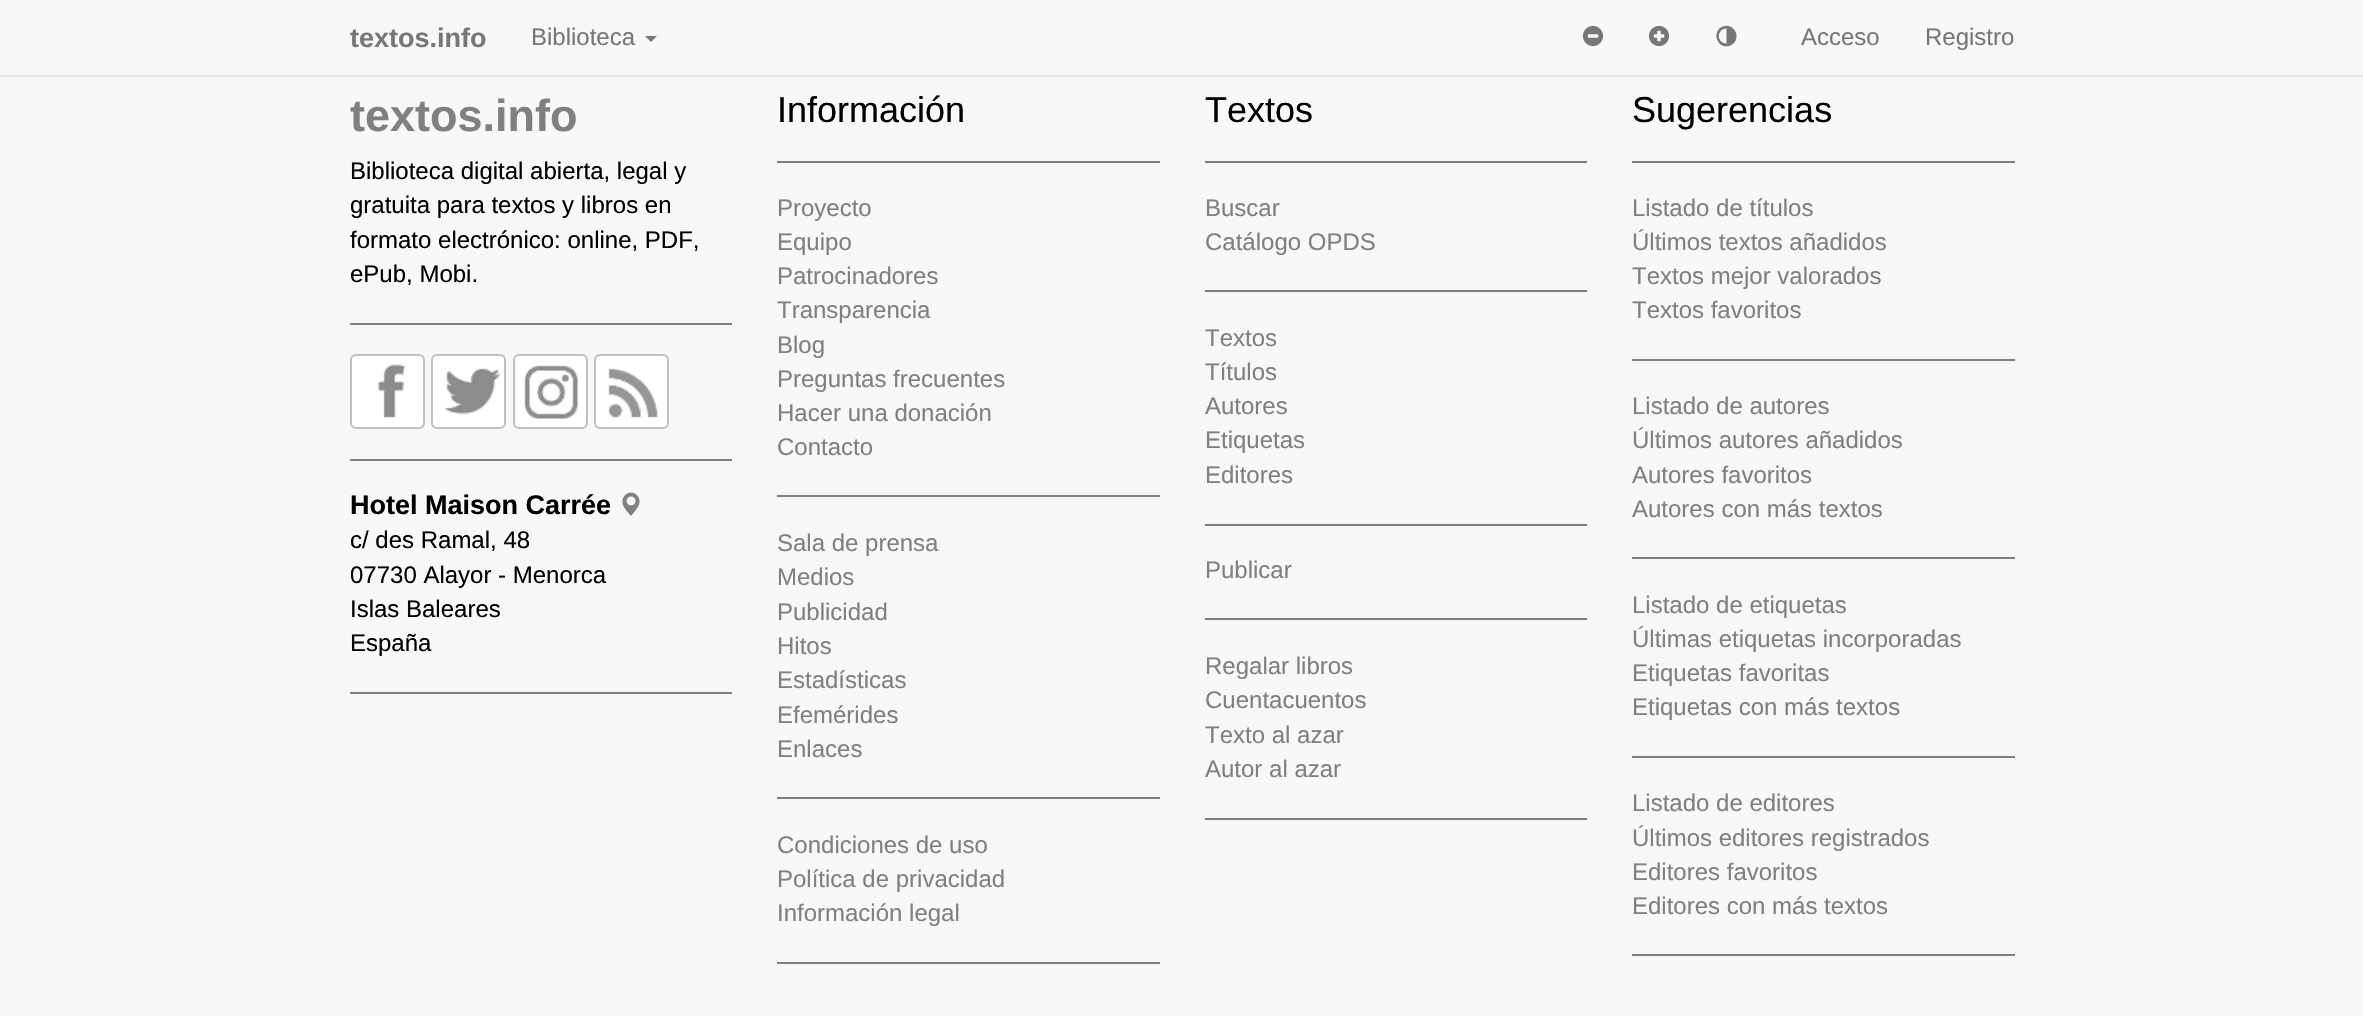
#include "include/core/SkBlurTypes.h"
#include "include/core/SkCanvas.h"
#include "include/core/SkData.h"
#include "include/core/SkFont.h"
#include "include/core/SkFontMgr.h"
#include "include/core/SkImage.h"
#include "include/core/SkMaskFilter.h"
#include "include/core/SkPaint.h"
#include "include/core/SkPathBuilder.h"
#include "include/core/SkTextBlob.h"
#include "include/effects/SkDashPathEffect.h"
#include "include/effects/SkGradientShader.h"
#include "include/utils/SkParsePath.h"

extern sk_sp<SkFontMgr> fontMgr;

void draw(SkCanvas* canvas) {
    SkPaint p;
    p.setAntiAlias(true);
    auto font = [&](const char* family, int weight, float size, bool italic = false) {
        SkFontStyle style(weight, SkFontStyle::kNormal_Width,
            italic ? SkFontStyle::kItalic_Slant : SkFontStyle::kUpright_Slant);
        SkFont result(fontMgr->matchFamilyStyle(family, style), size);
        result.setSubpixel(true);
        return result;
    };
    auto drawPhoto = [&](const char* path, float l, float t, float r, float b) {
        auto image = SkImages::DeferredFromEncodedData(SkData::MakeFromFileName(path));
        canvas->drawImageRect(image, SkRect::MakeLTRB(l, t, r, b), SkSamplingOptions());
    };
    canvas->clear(0xFFF8F8F8);
    p.setColor(0xFFE7E7E7);
    canvas->drawRect(SkRect::MakeLTRB(0, 75, 2363, 77), p);
    auto font1 = font("Liberation Sans", 700, 27);
    p.setColor(0xFF777777);
    canvas->drawString("textos.info", 350, 47, font1, p);
    auto font2 = font("Liberation Sans", 400, 24);
    canvas->drawString("Biblioteca", 531, 45, font2, p);
    canvas->drawPath(SkPathBuilder().moveTo(645, 36).lineTo(657, 36).lineTo(651, 42).close().detach(), p);
    drawPhoto("media/1.png", 1582, 25, 1604, 47);
    drawPhoto("media/2.png", 1648, 25, 1670, 47);
    canvas->drawPath(SkPathBuilder().moveTo(1722.5f, 26.5f).cubicTo(1735, 21.5f, 1742.5f, 40, 1730.5f, 45.5f).cubicTo(1718, 50.5f, 1710.5f, 32, 1722.5f, 26.5f).close().moveTo(1726.5f, 43.5f).lineTo(1726.5f, 28.5f).cubicTo(1716.5f, 28.5f, 1716.5f, 43.5f, 1726.5f, 43.5f).close().detach(), p);
    canvas->drawString("Acceso", 1801, 45, font2, p);
    canvas->drawString("Registro", 1925, 45, font2, p);
    auto font3 = font("Liberation Sans", 700, 45);
    p.setColor(0xFF808080);
    canvas->drawString("textos.info", 350, 131, font3, p);
    p.setColor(0xFF000000);
    {
        const struct { const char* s; float x, y; } items[] = {
            {"Biblioteca digital abierta, legal y", 350, 179},
            {"gratuita para textos y libros en", 350, 213},
            {"formato electrónico: online, PDF,", 350, 248},
            {"ePub, Mobi.", 350, 282},
        };
        for (auto [s, x, y] : items) {
            canvas->drawString(s, x, y, font2, p);
        }
    }
    p.setColor(0xFF808080);
    canvas->drawRect(SkRect::MakeLTRB(350, 323, 732, 325), p);
    drawPhoto("media/3.png", 351, 356, 424, 429);
    p.setStyle(SkPaint::kStroke_Style);
    p.setStrokeWidth(2);
    p.setColor(0xFFC0C0C0);
    canvas->drawRoundRect(SkRect::MakeLTRB(351, 355, 424, 428), 5, 5, p);
    drawPhoto("media/4.png", 431, 356, 505, 429);
    canvas->drawRoundRect(SkRect::MakeLTRB(432, 355, 505, 428), 5, 5, p);
    drawPhoto("media/5.png", 513, 356, 588, 429);
    canvas->drawRoundRect(SkRect::MakeLTRB(514, 355, 587, 428), 5, 5, p);
    drawPhoto("media/6.png", 594, 356, 669, 429);
    canvas->drawRoundRect(SkRect::MakeLTRB(595, 355, 668, 428), 5, 5, p);
    p.setStyle(SkPaint::kFill_Style);
    p.setColor(0xFF808080);
    canvas->drawRect(SkRect::MakeLTRB(350, 459, 732, 461), p);
    p.setColor(0xFF000000);
    canvas->drawString("Hotel Maison Carrée", 350, 514, font1, p);
    drawPhoto("media/7.png", 622, 492, 640, 516);
    {
        const struct { const char* s; float x, y; } items[] = {
            {"c/ des Ramal, 48", 350, 548},
            {"07730 Alayor - Menorca", 350, 583},
            {"Islas Baleares", 350, 617},
            {"España", 350, 651},
        };
        for (auto [s, x, y] : items) {
            canvas->drawString(s, x, y, font2, p);
        }
    }
    p.setColor(0xFF808080);
    canvas->drawRect(SkRect::MakeLTRB(350, 692, 732, 694), p);
    auto font4 = font("Liberation Sans", 400, 36);
    p.setColor(0xFF000000);
    canvas->drawString("Información", 777, 122, font4, p);
    p.setColor(0xFF808080);
    canvas->drawRect(SkRect::MakeLTRB(777, 161, 1160, 163), p);
    {
        const struct { const char* s; float x, y; } items[] = {
            {"Proyecto", 777, 216},
            {"Equipo", 777, 250},
            {"Patrocinadores", 777, 284},
            {"Transparencia", 777, 318},
            {"Blog", 777, 353},
            {"Preguntas frecuentes", 777, 387},
            {"Hacer una donación", 777, 421},
            {"Contacto", 777, 455},
        };
        for (auto [s, x, y] : items) {
            canvas->drawString(s, x, y, font2, p);
        }
    }
    canvas->drawRect(SkRect::MakeLTRB(777, 495, 1160, 497), p);
    {
        const struct { const char* s; float x, y; } items[] = {
            {"Sala de prensa", 777, 551},
            {"Medios", 777, 585},
            {"Publicidad", 777, 620},
            {"Hitos", 777, 654},
            {"Estadísticas", 777, 688},
            {"Efemérides", 777, 723},
            {"Enlaces", 777, 757},
        };
        for (auto [s, x, y] : items) {
            canvas->drawString(s, x, y, font2, p);
        }
    }
    canvas->drawRect(SkRect::MakeLTRB(777, 797, 1160, 799), p);
    {
        const struct { const char* s; float x, y; } items[] = {
            {"Condiciones de uso", 777, 853},
            {"Política de privacidad", 777, 887},
            {"Información legal", 777, 921},
        };
        for (auto [s, x, y] : items) {
            canvas->drawString(s, x, y, font2, p);
        }
    }
    canvas->drawRect(SkRect::MakeLTRB(777, 962, 1160, 964), p);
    p.setColor(0xFF000000);
    canvas->drawString("Textos", 1205, 122, font4, p);
    p.setColor(0xFF808080);
    canvas->drawRect(SkRect::MakeLTRB(1205, 161, 1587, 163), p);
    canvas->drawString("Buscar", 1205, 216, font2, p);
    canvas->drawString("Catálogo OPDS", 1205, 250, font2, p);
    canvas->drawRect(SkRect::MakeLTRB(1205, 290, 1587, 292), p);
    {
        const struct { const char* s; float x, y; } items[] = {
            {"Textos", 1205, 346},
            {"Títulos", 1205, 380},
            {"Autores", 1205, 414},
            {"Etiquetas", 1205, 448},
            {"Editores", 1205, 483},
        };
        for (auto [s, x, y] : items) {
            canvas->drawString(s, x, y, font2, p);
        }
    }
    canvas->drawRect(SkRect::MakeLTRB(1205, 524, 1587, 526), p);
    canvas->drawString("Publicar", 1205, 578, font2, p);
    canvas->drawRect(SkRect::MakeLTRB(1205, 618, 1587, 620), p);
    {
        const struct { const char* s; float x, y; } items[] = {
            {"Regalar libros", 1205, 674},
            {"Cuentacuentos", 1205, 708},
            {"Texto al azar", 1205, 743},
            {"Autor al azar", 1205, 777},
        };
        for (auto [s, x, y] : items) {
            canvas->drawString(s, x, y, font2, p);
        }
    }
    canvas->drawRect(SkRect::MakeLTRB(1205, 818, 1587, 820), p);
    p.setColor(0xFF000000);
    canvas->drawString("Sugerencias", 1632, 122, font4, p);
    p.setColor(0xFF808080);
    canvas->drawRect(SkRect::MakeLTRB(1632, 161, 2015, 163), p);
    {
        const struct { const char* s; float x, y; } items[] = {
            {"Listado de títulos", 1632, 216},
            {"Últimos textos añadidos", 1632, 250},
            {"Textos mejor valorados", 1632, 284},
            {"Textos favoritos", 1632, 318},
        };
        for (auto [s, x, y] : items) {
            canvas->drawString(s, x, y, font2, p);
        }
    }
    canvas->drawRect(SkRect::MakeLTRB(1632, 359, 2015, 361), p);
    {
        const struct { const char* s; float x, y; } items[] = {
            {"Listado de autores", 1632, 414},
            {"Últimos autores añadidos", 1632, 448},
            {"Autores favoritos", 1632, 483},
            {"Autores con más textos", 1632, 517},
        };
        for (auto [s, x, y] : items) {
            canvas->drawString(s, x, y, font2, p);
        }
    }
    canvas->drawRect(SkRect::MakeLTRB(1632, 557, 2015, 559), p);
    {
        const struct { const char* s; float x, y; } items[] = {
            {"Listado de etiquetas", 1632, 613},
            {"Últimas etiquetas incorporadas", 1632, 647},
            {"Etiquetas favoritas", 1632, 681},
            {"Etiquetas con más textos", 1632, 715},
        };
        for (auto [s, x, y] : items) {
            canvas->drawString(s, x, y, font2, p);
        }
    }
    canvas->drawRect(SkRect::MakeLTRB(1632, 756, 2015, 758), p);
    {
        const struct { const char* s; float x, y; } items[] = {
            {"Listado de editores", 1632, 811},
            {"Últimos editores registrados", 1632, 846},
            {"Editores favoritos", 1632, 880},
            {"Editores con más textos", 1632, 914},
        };
        for (auto [s, x, y] : items) {
            canvas->drawString(s, x, y, font2, p);
        }
    }
    canvas->drawRect(SkRect::MakeLTRB(1632, 954, 2015, 956), p);
}
